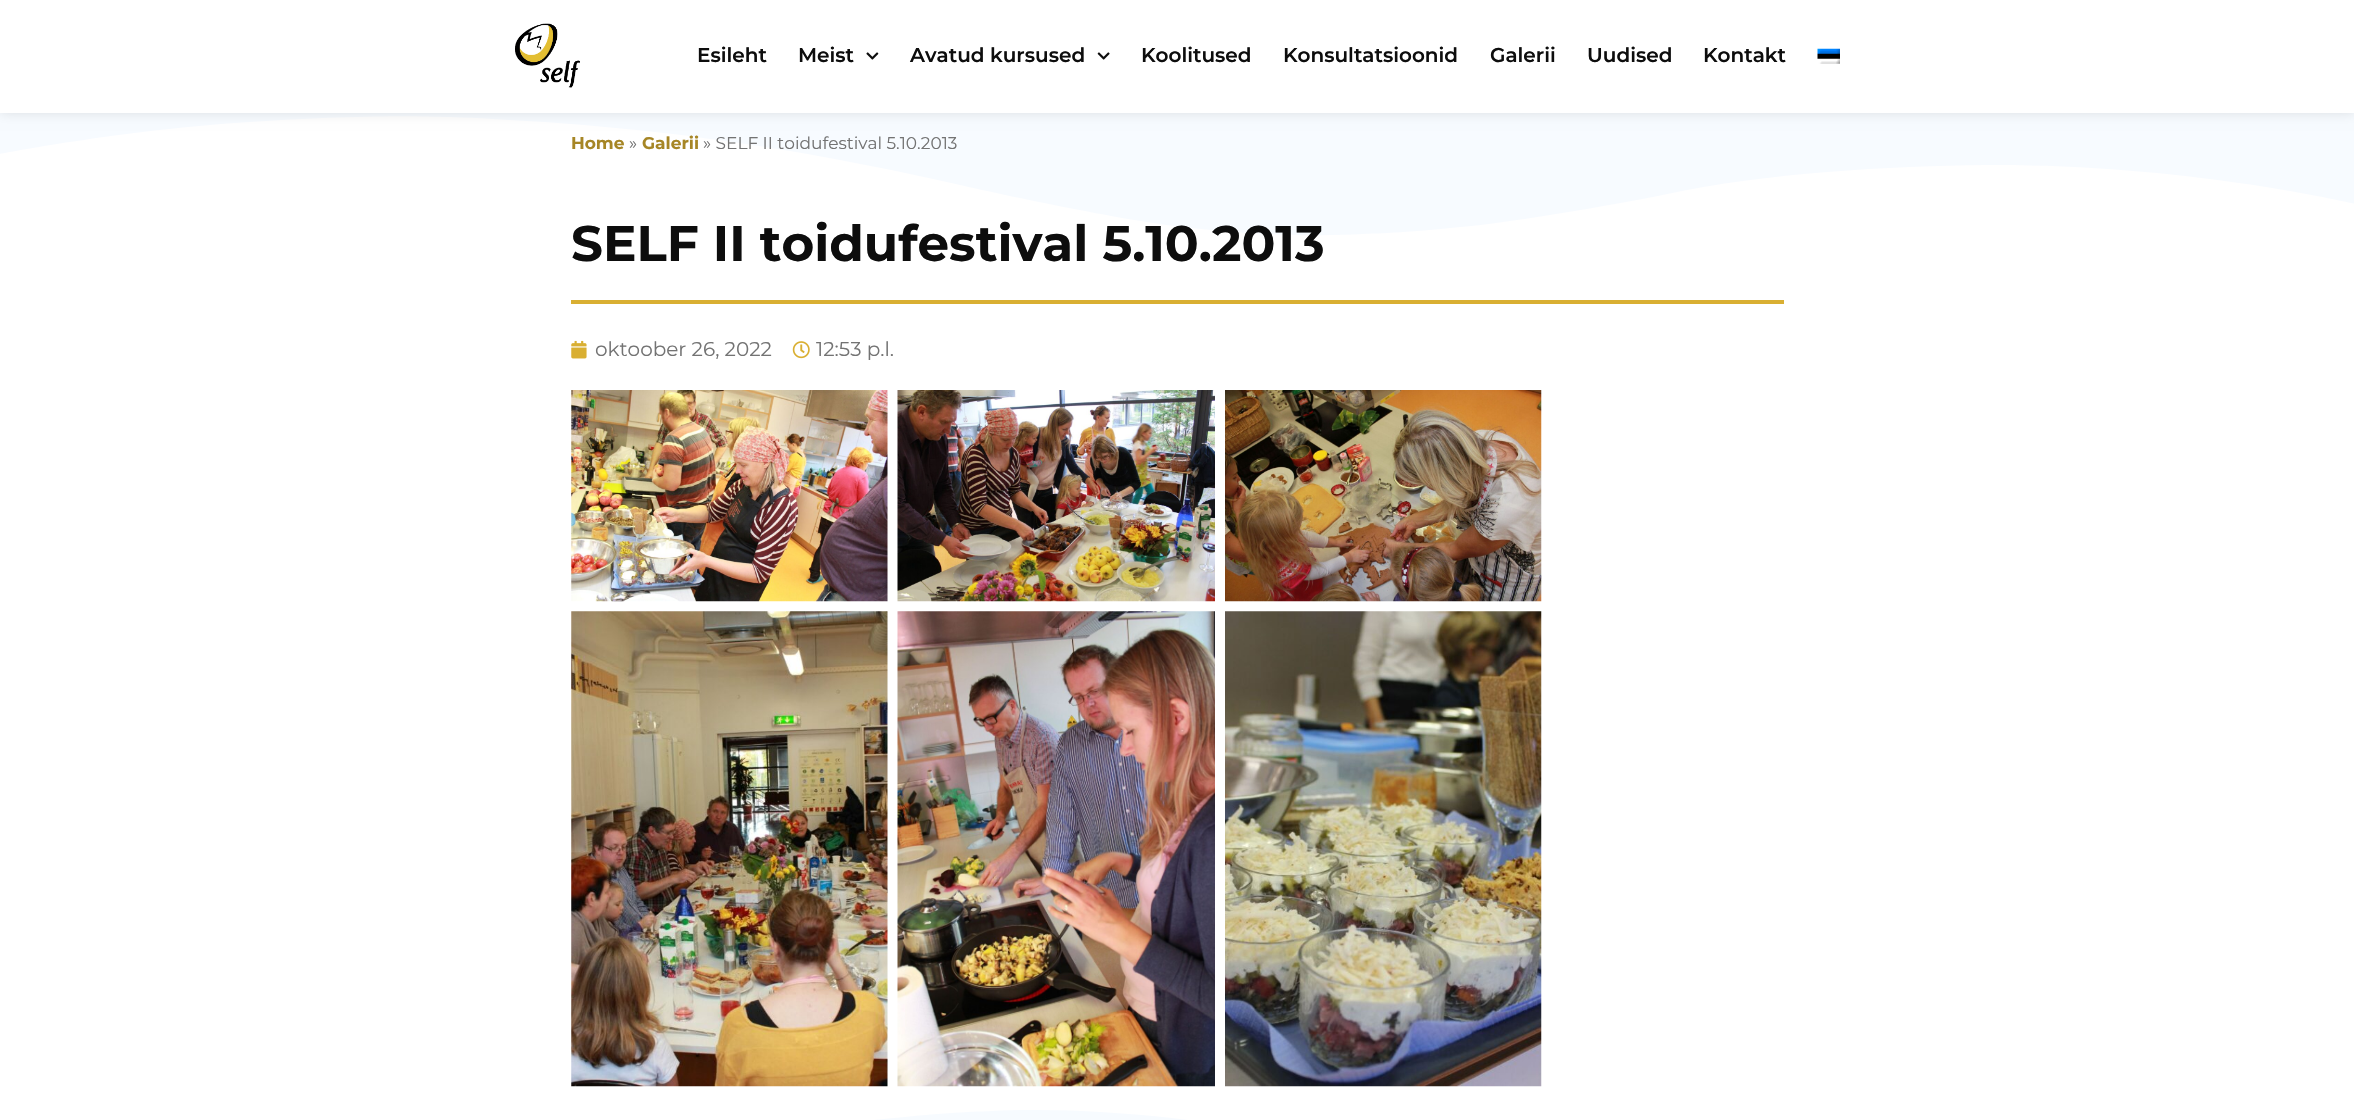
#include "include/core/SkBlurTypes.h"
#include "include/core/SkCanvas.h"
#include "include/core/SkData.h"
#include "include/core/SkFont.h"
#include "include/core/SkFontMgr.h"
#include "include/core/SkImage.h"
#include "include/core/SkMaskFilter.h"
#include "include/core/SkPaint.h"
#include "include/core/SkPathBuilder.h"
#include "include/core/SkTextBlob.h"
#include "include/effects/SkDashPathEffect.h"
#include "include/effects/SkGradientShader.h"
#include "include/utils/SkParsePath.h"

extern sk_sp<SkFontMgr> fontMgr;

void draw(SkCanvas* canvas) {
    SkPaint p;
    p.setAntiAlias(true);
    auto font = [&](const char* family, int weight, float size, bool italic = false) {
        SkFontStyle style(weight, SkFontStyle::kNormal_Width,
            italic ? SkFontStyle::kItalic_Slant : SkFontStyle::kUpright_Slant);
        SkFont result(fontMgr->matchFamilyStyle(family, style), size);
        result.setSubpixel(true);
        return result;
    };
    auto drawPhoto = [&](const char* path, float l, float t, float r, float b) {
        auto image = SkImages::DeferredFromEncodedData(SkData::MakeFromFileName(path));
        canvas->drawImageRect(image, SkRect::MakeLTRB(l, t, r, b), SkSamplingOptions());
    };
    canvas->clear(0xFFFFFFFF);
    p.setColor(0xFFF7FBFF);
    canvas->drawPath(SkPathBuilder().moveTo(493, 119).cubicTo(633, 126, 768, 142, 947, 182).cubicTo(1017, 198, 1128, 221, 1184, 227).cubicTo(1239, 234, 1308, 237, 1362, 234).cubicTo(1386, 233, 1415, 232, 1480, 225).cubicTo(1544, 217, 1617, 204, 1667, 194).cubicTo(1764, 173, 1890, 166, 1983, 165).cubicTo(2186, 163, 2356, 204, 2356, 204).lineTo(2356, 110).lineTo(-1, 110).lineTo(-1, 154).cubicTo(-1, 154, 121, 130, 249, 122).cubicTo(377, 114, 437, 116, 493, 119).close().detach(), p);
    p.setColor(0x1C000000);
    p.setMaskFilter(SkMaskFilter::MakeBlur(kNormal_SkBlurStyle, 6));
    canvas->drawRect(SkRect::MakeLTRB(0, 0, 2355, 113), p);
    p.setMaskFilter(nullptr);
    p.setColor(0xFFFFFFFF);
    canvas->drawRect(SkRect::MakeLTRB(0, 0, 2354, 113), p);
    drawPhoto("media/1.png", 515, 23, 580, 88);
    auto font1 = font("Montserrat", 600, 20);
    p.setColor(0xFF0D0D0D);
    canvas->drawString("Esileht", 697, 62, font1, p);
    canvas->drawString("Meist", 798, 62, font1, p);
    drawPhoto("media/2.png", 866, 52, 879, 60);
    canvas->drawString("Avatud kursused", 910, 62, font1, p);
    drawPhoto("media/3.png", 1097, 52, 1110, 60);
    {
        const struct { const char* s; float x, y; } items[] = {
            {"Koolitused", 1141, 62},
            {"Konsultatsioonid", 1283, 62},
            {"Galerii", 1490, 62},
            {"Uudised", 1587, 62},
            {"Kontakt", 1703, 62},
        };
        for (auto [s, x, y] : items) {
            canvas->drawString(s, x, y, font1, p);
        }
    }
    drawPhoto("media/4.png", 1817, 48, 1840, 64);
    auto font2 = font("Montserrat", 700, 17);
    p.setColor(0xFFA68626);
    canvas->drawString("Home", 571, 149, font2, p);
    auto font3 = font("Montserrat", 400, 17);
    p.setColor(0xFF737373);
    canvas->drawString("»", 629, 149, font3, p);
    p.setColor(0xFFA68626);
    canvas->drawString("Galerii", 642, 149, font2, p);
    p.setColor(0xFF737373);
    canvas->drawString("» SELF II toidufestival 5.10.2013", 703, 149, font3, p);
    auto font4 = font("Montserrat", 700, 50);
    p.setColor(0xFF0D0D0D);
    canvas->drawString("SELF II toidufestival 5.10.2013", 571, 261, font4, p);
    p.setColor(0xFFD9AF32);
    canvas->drawRect(SkRect::MakeLTRB(571, 300, 1784, 304), p);
    drawPhoto("media/5.png", 571, 340, 587, 359);
    auto font5 = font("Montserrat", 400, 20);
    p.setColor(0xFF737373);
    canvas->drawString("oktoober 26, 2022", 595, 356, font5, p);
    drawPhoto("media/6.png", 792, 341, 810, 359);
    canvas->drawString("12:53 p.l.", 816, 356, font5, p);
    drawPhoto("media/7.png", 571, 390, 888, 602);
    drawPhoto("media/8.png", 897, 390, 1215, 602);
    drawPhoto("media/9.png", 1225, 390, 1542, 602);
    drawPhoto("media/10.png", 571, 611, 888, 1087);
    drawPhoto("media/11.png", 897, 611, 1215, 1087);
    drawPhoto("media/12.png", 1225, 611, 1542, 1087);
    p.setColor(0xFFF7FBFF);
    canvas->drawPath(SkPathBuilder().moveTo(1862, 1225).cubicTo(1722, 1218, 1587, 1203, 1408, 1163).cubicTo(1338, 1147, 1227, 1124, 1171, 1118).cubicTo(1116, 1112, 1047, 1108, 993, 1111).cubicTo(969, 1112, 940, 1113, 875, 1120).cubicTo(811, 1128, 738, 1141, 688, 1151).cubicTo(591, 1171, 465, 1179, 372, 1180).cubicTo(169, 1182, -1, 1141, -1, 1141).lineTo(-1, 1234).lineTo(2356, 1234).lineTo(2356, 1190).cubicTo(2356, 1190, 2234, 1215, 2106, 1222).cubicTo(1978, 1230, 1918, 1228, 1862, 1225).close().detach(), p);
}
